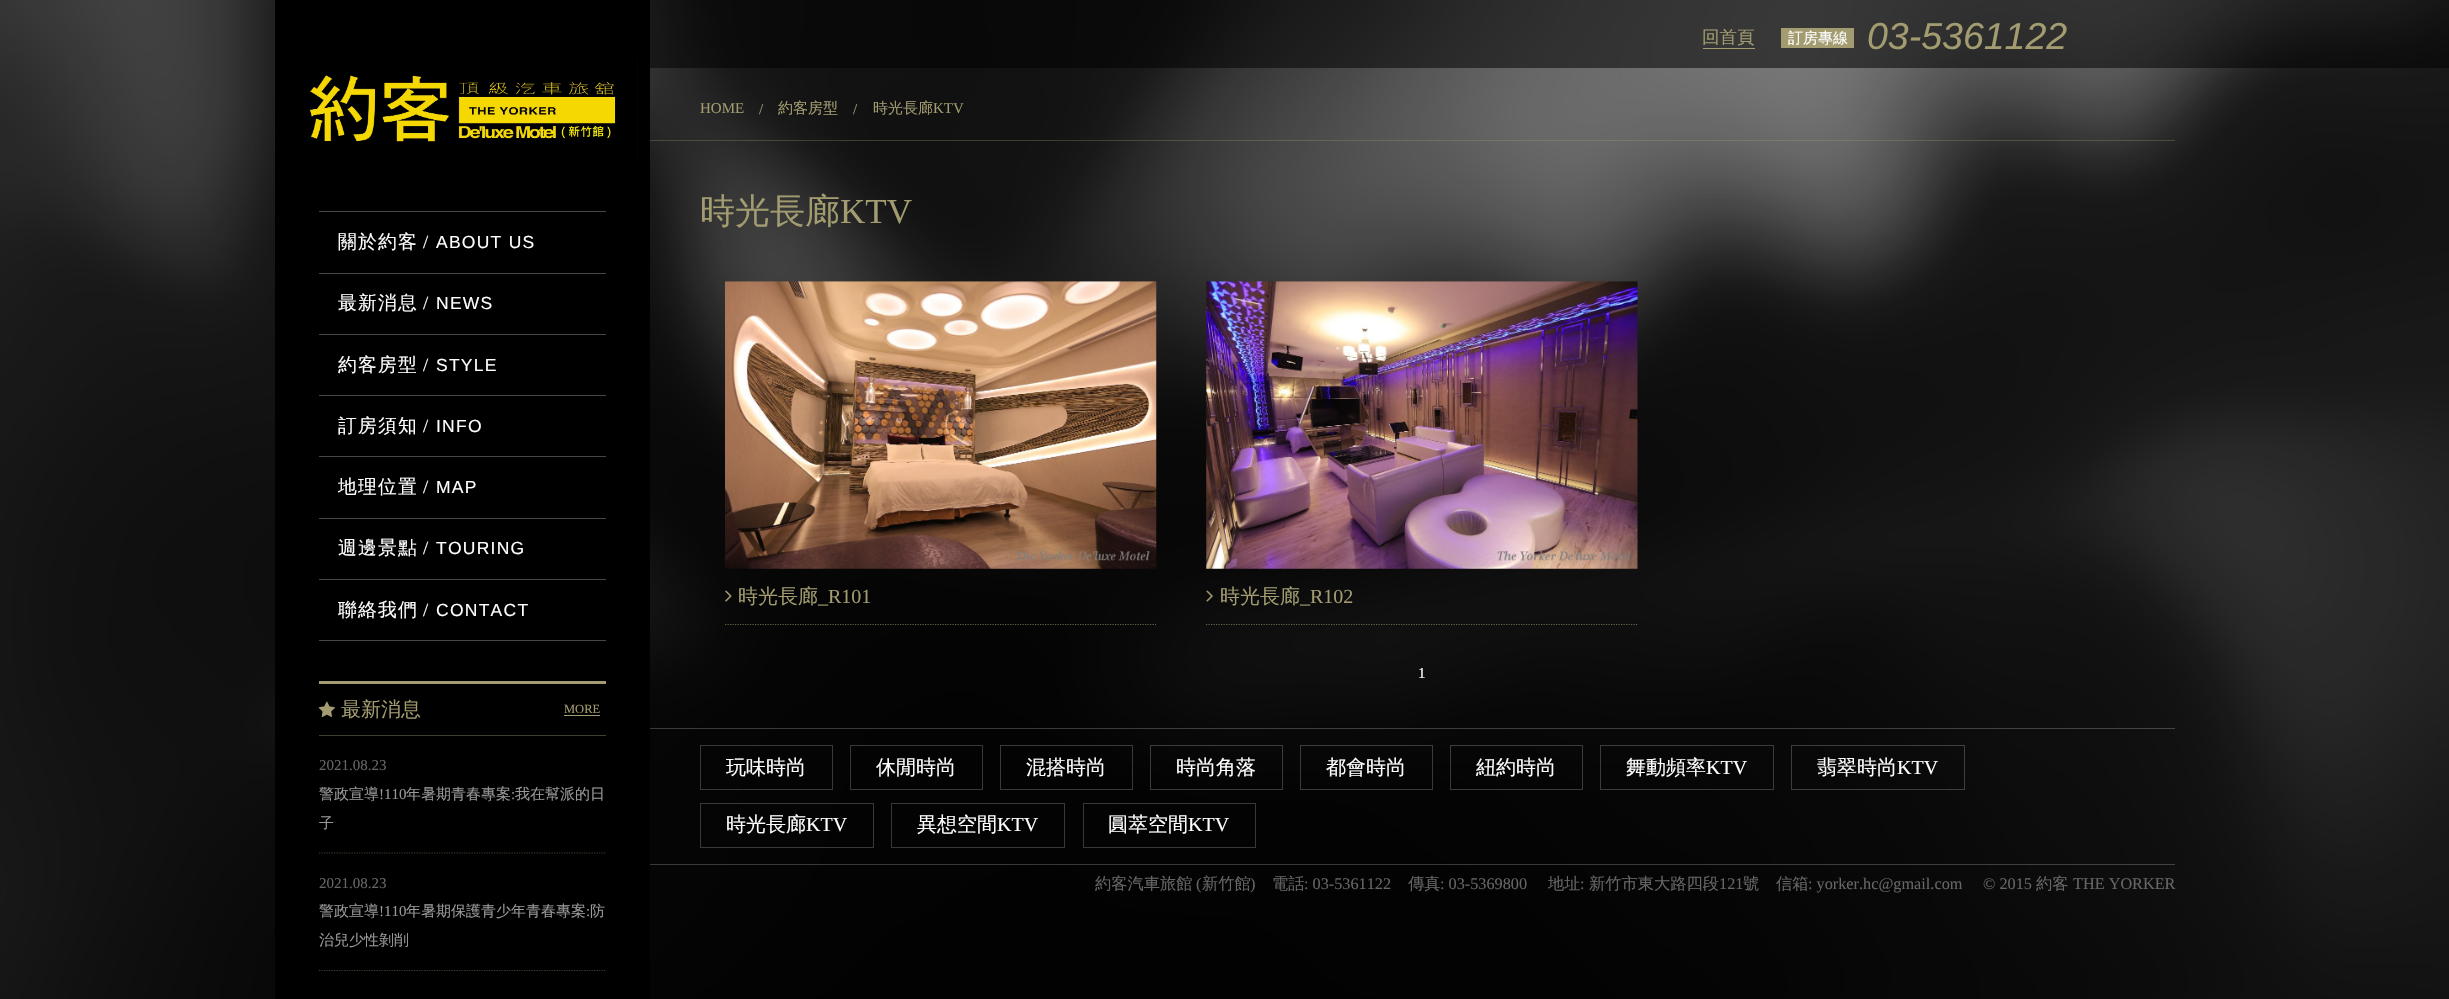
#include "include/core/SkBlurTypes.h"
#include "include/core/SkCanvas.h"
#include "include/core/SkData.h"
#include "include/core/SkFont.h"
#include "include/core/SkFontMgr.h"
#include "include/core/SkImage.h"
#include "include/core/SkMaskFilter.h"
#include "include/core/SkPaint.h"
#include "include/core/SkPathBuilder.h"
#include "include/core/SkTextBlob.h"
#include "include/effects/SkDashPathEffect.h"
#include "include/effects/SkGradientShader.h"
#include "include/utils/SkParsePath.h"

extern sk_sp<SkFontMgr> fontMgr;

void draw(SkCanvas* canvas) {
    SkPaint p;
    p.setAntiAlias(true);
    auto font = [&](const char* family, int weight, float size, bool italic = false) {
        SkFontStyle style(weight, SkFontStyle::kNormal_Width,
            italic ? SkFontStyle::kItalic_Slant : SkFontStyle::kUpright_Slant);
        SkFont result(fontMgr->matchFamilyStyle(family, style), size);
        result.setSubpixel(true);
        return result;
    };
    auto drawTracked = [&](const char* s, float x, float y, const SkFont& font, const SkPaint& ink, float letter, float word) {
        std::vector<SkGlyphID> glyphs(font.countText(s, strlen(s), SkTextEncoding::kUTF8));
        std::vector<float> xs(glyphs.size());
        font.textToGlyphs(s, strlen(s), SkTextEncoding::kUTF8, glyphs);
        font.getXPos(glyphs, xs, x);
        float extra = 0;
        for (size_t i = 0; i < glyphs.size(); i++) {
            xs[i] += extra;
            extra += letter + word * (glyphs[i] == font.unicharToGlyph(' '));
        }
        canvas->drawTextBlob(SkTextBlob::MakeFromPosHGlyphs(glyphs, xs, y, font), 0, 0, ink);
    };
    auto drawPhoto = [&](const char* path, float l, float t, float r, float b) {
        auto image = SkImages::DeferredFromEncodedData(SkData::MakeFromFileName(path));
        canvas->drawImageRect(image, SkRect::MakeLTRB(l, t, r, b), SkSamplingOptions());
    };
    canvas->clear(0xFFFFFFFF);
    drawPhoto("media/1.png", 0, 0, 2449, 999);
    p.setColor(0x87000000);
    canvas->drawRect(SkRect::MakeLTRB(650, 0, 2449, 68), p);
    auto font1 = font("WenQuanYi Zen Hei", 500, 17.5f);
    p.setColor(0xFFA29C70);
    canvas->drawString("回首頁", 1702, 43, font1, p);
    canvas->drawRect(SkRect::MakeLTRB(1703, 48, 1755, 49), p);
    canvas->drawRect(SkRect::MakeLTRB(1781, 28, 1854, 48), p);
    auto font2 = font("WenQuanYi Zen Hei", 500, 15);
    p.setColor(0xFFFFFFFF);
    canvas->drawString("訂房專線", 1788, 43, font2, p);
    auto font3 = font("Liberation Sans", 400, 37.5f, true);
    p.setColor(0xFFA29C70);
    canvas->drawString("03-5361122", 1867, 49, font3, p);
    p.setColor(0xFF000000);
    canvas->drawRect(SkRect::MakeLTRB(275, 0, 650, 999), p);
    drawPhoto("media/2.png", 309, 58, 638, 161);
    p.setColor(0xFF474747);
    canvas->drawRect(SkRect::MakeLTRB(319, 211, 606, 212), p);
    auto font4 = font("WenQuanYi Zen Hei", 500, 18.75f);
    p.setColor(0xFFFFFFFF);
    drawTracked("關於約客", 338, 248, font4, p, 1.25f, 0);
    auto font5 = font("Liberation Serif", 400, 18.75f);
    drawTracked("/", 423, 248, font5, p, 1.25f, 0);
    auto font6 = font("Liberation Sans", 400, 17.5f);
    drawTracked("ABOUT US", 436, 248, font6, p, 1.25f, 0);
    p.setColor(0xFF474747);
    canvas->drawRect(SkRect::MakeLTRB(319, 273, 606, 274), p);
    p.setColor(0xFFFFFFFF);
    drawTracked("最新消息", 338, 309, font4, p, 1.25f, 0);
    drawTracked("/", 423, 309, font5, p, 1.25f, 0);
    drawTracked("NEWS", 436, 309, font6, p, 1.25f, 0);
    p.setColor(0xFF474747);
    canvas->drawRect(SkRect::MakeLTRB(319, 334, 606, 335), p);
    p.setColor(0xFFFFFFFF);
    drawTracked("約客房型", 338, 371, font4, p, 1.25f, 0);
    drawTracked("/", 423, 371, font5, p, 1.25f, 0);
    drawTracked("STYLE", 436, 371, font6, p, 1.25f, 0);
    p.setColor(0xFF474747);
    canvas->drawRect(SkRect::MakeLTRB(319, 395, 606, 396), p);
    p.setColor(0xFFFFFFFF);
    drawTracked("訂房須知", 338, 432, font4, p, 1.25f, 0);
    drawTracked("/", 423, 432, font5, p, 1.25f, 0);
    drawTracked("INFO", 436, 432, font6, p, 1.25f, 0);
    p.setColor(0xFF474747);
    canvas->drawRect(SkRect::MakeLTRB(319, 456, 606, 457), p);
    p.setColor(0xFFFFFFFF);
    drawTracked("地理位置", 338, 493, font4, p, 1.25f, 0);
    drawTracked("/", 423, 493, font5, p, 1.25f, 0);
    drawTracked("MAP", 436, 493, font6, p, 1.25f, 0);
    p.setColor(0xFF474747);
    canvas->drawRect(SkRect::MakeLTRB(319, 518, 606, 519), p);
    p.setColor(0xFFFFFFFF);
    drawTracked("週邊景點", 338, 554, font4, p, 1.25f, 0);
    drawTracked("/", 423, 554, font5, p, 1.25f, 0);
    drawTracked("TOURING", 436, 554, font6, p, 1.25f, 0);
    p.setColor(0xFF474747);
    canvas->drawRect(SkRect::MakeLTRB(319, 579, 606, 580), p);
    canvas->drawRect(SkRect::MakeLTRB(319, 640, 606, 641), p);
    p.setColor(0xFFFFFFFF);
    drawTracked("聯絡我們", 338, 616, font4, p, 1.25f, 0);
    drawTracked("/", 423, 616, font5, p, 1.25f, 0);
    drawTracked("CONTACT", 436, 616, font6, p, 1.25f, 0);
    p.setColor(0xFFA29C70);
    canvas->drawRect(SkRect::MakeLTRB(319, 681, 606, 684), p);
    p.setColor(0xFF413E2D);
    canvas->drawRect(SkRect::MakeLTRB(319, 735, 606, 736), p);
    drawPhoto("media/3.png", 318, 701, 335, 717);
    auto font7 = font("WenQuanYi Zen Hei", 500, 20);
    p.setColor(0xFFA29C70);
    canvas->drawString("最新消息", 341, 716, font7, p);
    auto font8 = font("Liberation Serif", 400, 12.5f);
    canvas->drawString("MORE", 564, 713, font8, p);
    canvas->drawRect(SkRect::MakeLTRB(564, 715, 600, 716), p);
    p.setStyle(SkPaint::kStroke_Style);
    p.setStrokeWidth(1.2f);
    p.setColor(0xFF413E2D);
    p.setPathEffect(SkDashPathEffect::Make({{1.25f, 1.25f}}, 0));
    canvas->drawPath(SkPathBuilder().moveTo(319, 853).lineTo(606, 853).detach(), p);
    p.setPathEffect(nullptr);
    auto font9 = font("Liberation Serif", 400, 15);
    p.setStyle(SkPaint::kFill_Style);
    p.setColor(0xFF666666);
    canvas->drawString("2021.08.23", 319, 770, font9, p);
    p.setColor(0xFF999999);
    canvas->drawString("警政宣導", 319, 799, font2, p);
    canvas->drawString("!110", 379, 799, font9, p);
    canvas->drawString("年暑期青春專案", 406, 799, font2, p);
    canvas->drawString(":", 511, 799, font9, p);
    canvas->drawString("我在幫派的日", 515, 799, font2, p);
    canvas->drawString("子", 319, 828, font2, p);
    p.setStyle(SkPaint::kStroke_Style);
    p.setColor(0xFF413E2D);
    p.setPathEffect(SkDashPathEffect::Make({{1.25f, 1.25f}}, 0));
    canvas->drawPath(SkPathBuilder().moveTo(319, 970.5f).lineTo(606, 970.5f).detach(), p);
    p.setPathEffect(nullptr);
    p.setStyle(SkPaint::kFill_Style);
    p.setColor(0xFF666666);
    canvas->drawString("2021.08.23", 319, 888, font9, p);
    p.setColor(0xFF999999);
    canvas->drawString("警政宣導", 319, 916, font2, p);
    canvas->drawString("!110", 379, 916, font9, p);
    canvas->drawString("年暑期保護青少年青春專案", 406, 916, font2, p);
    canvas->drawString(":", 586, 916, font9, p);
    canvas->drawString("防", 590, 916, font2, p);
    canvas->drawString("治兒少性剝削", 319, 945, font2, p);
    p.setColor(0xFFA29C70);
    canvas->drawString("HOME", 700, 113, font9, p);
    canvas->drawString("/", 759, 114, font9, p);
    canvas->drawString("約客房型", 778, 113, font2, p);
    canvas->drawString("/", 853, 114, font9, p);
    canvas->drawString("時光長廊", 873, 113, font2, p);
    canvas->drawString("KTV", 933, 113, font9, p);
    p.setColor(0x4DA29C70);
    canvas->drawRect(SkRect::MakeLTRB(650, 140, 2175, 141), p);
    auto font10 = font("WenQuanYi Zen Hei", 500, 35);
    p.setColor(0xFFA29C70);
    canvas->drawString("時光長廊", 700, 223, font10, p);
    auto font11 = font("Liberation Serif", 400, 35);
    canvas->drawString("KTV", 840, 223, font11, p);
    drawPhoto("media/4.png", 725, 281, 1157, 569);
    p.setStyle(SkPaint::kStroke_Style);
    p.setColor(0x96A29C70);
    p.setPathEffect(SkDashPathEffect::Make({{1.25f, 1.25f}}, 0));
    canvas->drawPath(SkPathBuilder().moveTo(725, 624.5f).lineTo(1156, 624.5f).detach(), p);
    p.setPathEffect(nullptr);
    drawPhoto("media/5.png", 725, 590, 732, 602);
    p.setStyle(SkPaint::kFill_Style);
    p.setColor(0xFFA29C70);
    canvas->drawString("時光長廊", 738, 603, font7, p);
    auto font12 = font("Liberation Serif", 400, 20);
    canvas->drawString("_R101", 818, 603, font12, p);
    drawPhoto("media/6.png", 1206, 281, 1638, 569);
    p.setStyle(SkPaint::kStroke_Style);
    p.setColor(0x96A29C70);
    p.setPathEffect(SkDashPathEffect::Make({{1.25f, 1.25f}}, 0));
    canvas->drawPath(SkPathBuilder().moveTo(1206, 624.5f).lineTo(1637.5f, 624.5f).detach(), p);
    p.setPathEffect(nullptr);
    drawPhoto("media/7.png", 1206, 590, 1213, 602);
    p.setStyle(SkPaint::kFill_Style);
    p.setColor(0xFFA29C70);
    canvas->drawString("時光長廊", 1220, 603, font7, p);
    canvas->drawString("_R102", 1300, 603, font12, p);
    p.setColor(0xFFFFFFFF);
    canvas->drawString("1", 1418, 678, font9, p);
    p.setColor(0x36FFFFFF);
    canvas->drawRect(SkRect::MakeLTRB(650, 728, 2175, 729), p);
    p.setStyle(SkPaint::kStroke_Style);
    p.setStrokeWidth(1);
    p.setColor(0xFF393939);
    canvas->drawRect(SkRect::MakeLTRB(700.5f, 745.5f, 832.5f, 789.5f), p);
    p.setStyle(SkPaint::kFill_Style);
    p.setColor(0xFFFFFFFF);
    canvas->drawString("玩味時尚", 726, 774, font7, p);
    p.setStyle(SkPaint::kStroke_Style);
    p.setColor(0xFF383838);
    canvas->drawRect(SkRect::MakeLTRB(850.5f, 745.5f, 982.5f, 789.5f), p);
    p.setStyle(SkPaint::kFill_Style);
    p.setColor(0xFFFFFFFF);
    canvas->drawString("休閒時尚", 876, 774, font7, p);
    p.setStyle(SkPaint::kStroke_Style);
    p.setColor(0x36FFFFFF);
    canvas->drawRect(SkRect::MakeLTRB(1000.5f, 745.5f, 1132.5f, 789.5f), p);
    p.setStyle(SkPaint::kFill_Style);
    p.setColor(0xFFFFFFFF);
    canvas->drawString("混搭時尚", 1026, 774, font7, p);
    p.setStyle(SkPaint::kStroke_Style);
    p.setColor(0x36FFFFFF);
    canvas->drawRect(SkRect::MakeLTRB(1150.5f, 745.5f, 1282.5f, 789.5f), p);
    p.setStyle(SkPaint::kFill_Style);
    p.setColor(0xFFFFFFFF);
    canvas->drawString("時尚角落", 1176, 774, font7, p);
    p.setStyle(SkPaint::kStroke_Style);
    p.setColor(0x36FFFFFF);
    canvas->drawRect(SkRect::MakeLTRB(1300.5f, 745.5f, 1432.5f, 789.5f), p);
    p.setStyle(SkPaint::kFill_Style);
    p.setColor(0xFFFFFFFF);
    canvas->drawString("都會時尚", 1326, 774, font7, p);
    p.setStyle(SkPaint::kStroke_Style);
    p.setColor(0x36FFFFFF);
    canvas->drawRect(SkRect::MakeLTRB(1450.5f, 745.5f, 1582.5f, 789.5f), p);
    p.setStyle(SkPaint::kFill_Style);
    p.setColor(0xFFFFFFFF);
    canvas->drawString("紐約時尚", 1476, 774, font7, p);
    p.setStyle(SkPaint::kStroke_Style);
    p.setColor(0xFF3B3B3B);
    canvas->drawRect(SkRect::MakeLTRB(1600.5f, 745.5f, 1773.5f, 789.5f), p);
    p.setStyle(SkPaint::kFill_Style);
    p.setColor(0xFFFFFFFF);
    canvas->drawString("舞動頻率", 1626, 774, font7, p);
    canvas->drawString("KTV", 1706, 774, font12, p);
    p.setStyle(SkPaint::kStroke_Style);
    p.setColor(0x36FFFFFF);
    canvas->drawRect(SkRect::MakeLTRB(1791.5f, 745.5f, 1964.5f, 789.5f), p);
    p.setStyle(SkPaint::kFill_Style);
    p.setColor(0xFFFFFFFF);
    canvas->drawString("翡翠時尚", 1817, 774, font7, p);
    canvas->drawString("KTV", 1897, 774, font12, p);
    p.setStyle(SkPaint::kStroke_Style);
    p.setColor(0xFF393939);
    canvas->drawRect(SkRect::MakeLTRB(700.5f, 803.5f, 873.5f, 847.5f), p);
    p.setStyle(SkPaint::kFill_Style);
    p.setColor(0xFFFFFFFF);
    canvas->drawString("時光長廊", 726, 831, font7, p);
    canvas->drawString("KTV", 806, 831, font12, p);
    p.setStyle(SkPaint::kStroke_Style);
    p.setColor(0xFF383838);
    canvas->drawRect(SkRect::MakeLTRB(891.5f, 803.5f, 1064.5f, 847.5f), p);
    p.setStyle(SkPaint::kFill_Style);
    p.setColor(0xFFFFFFFF);
    canvas->drawString("異想空間", 917, 831, font7, p);
    canvas->drawString("KTV", 997, 831, font12, p);
    p.setStyle(SkPaint::kStroke_Style);
    p.setColor(0xFF383838);
    canvas->drawRect(SkRect::MakeLTRB(1083.5f, 803.5f, 1255.5f, 847.5f), p);
    p.setStyle(SkPaint::kFill_Style);
    p.setColor(0xFFFFFFFF);
    canvas->drawString("圓萃空間", 1108, 831, font7, p);
    canvas->drawString("KTV", 1188, 831, font12, p);
    p.setColor(0x36FFFFFF);
    canvas->drawRect(SkRect::MakeLTRB(650, 864, 2175, 865), p);
    auto font13 = font("WenQuanYi Zen Hei", 500, 16.25f);
    p.setColor(0xFF666666);
    canvas->drawString("約客汽車旅館", 1095, 889, font13, p);
    auto font14 = font("Liberation Serif", 400, 16.25f);
    canvas->drawString("(", 1196, 889, font14, p);
    canvas->drawString("新竹館", 1202, 889, font13, p);
    canvas->drawString(")", 1250, 889, font14, p);
    canvas->drawString("電話", 1272, 889, font13, p);
    canvas->drawString(": 03-5361122", 1304, 889, font14, p);
    canvas->drawString("傳真", 1408, 889, font13, p);
    canvas->drawString(": 03-5369800", 1440, 889, font14, p);
    canvas->drawString("地址", 1548, 889, font13, p);
    canvas->drawString(":", 1580, 889, font14, p);
    canvas->drawString("新竹市東大路四段", 1589, 889, font13, p);
    canvas->drawString("121", 1719, 889, font14, p);
    canvas->drawString("號", 1743, 889, font13, p);
    canvas->drawString("信箱", 1776, 889, font13, p);
    canvas->drawString(": yorker.hc@gmail.com", 1808, 889, font14, p);
    canvas->drawString("© 2015", 1983, 889, font14, p);
    canvas->drawString("約客", 2036, 889, font13, p);
    canvas->drawString("THE YORKER", 2073, 889, font14, p);
}
